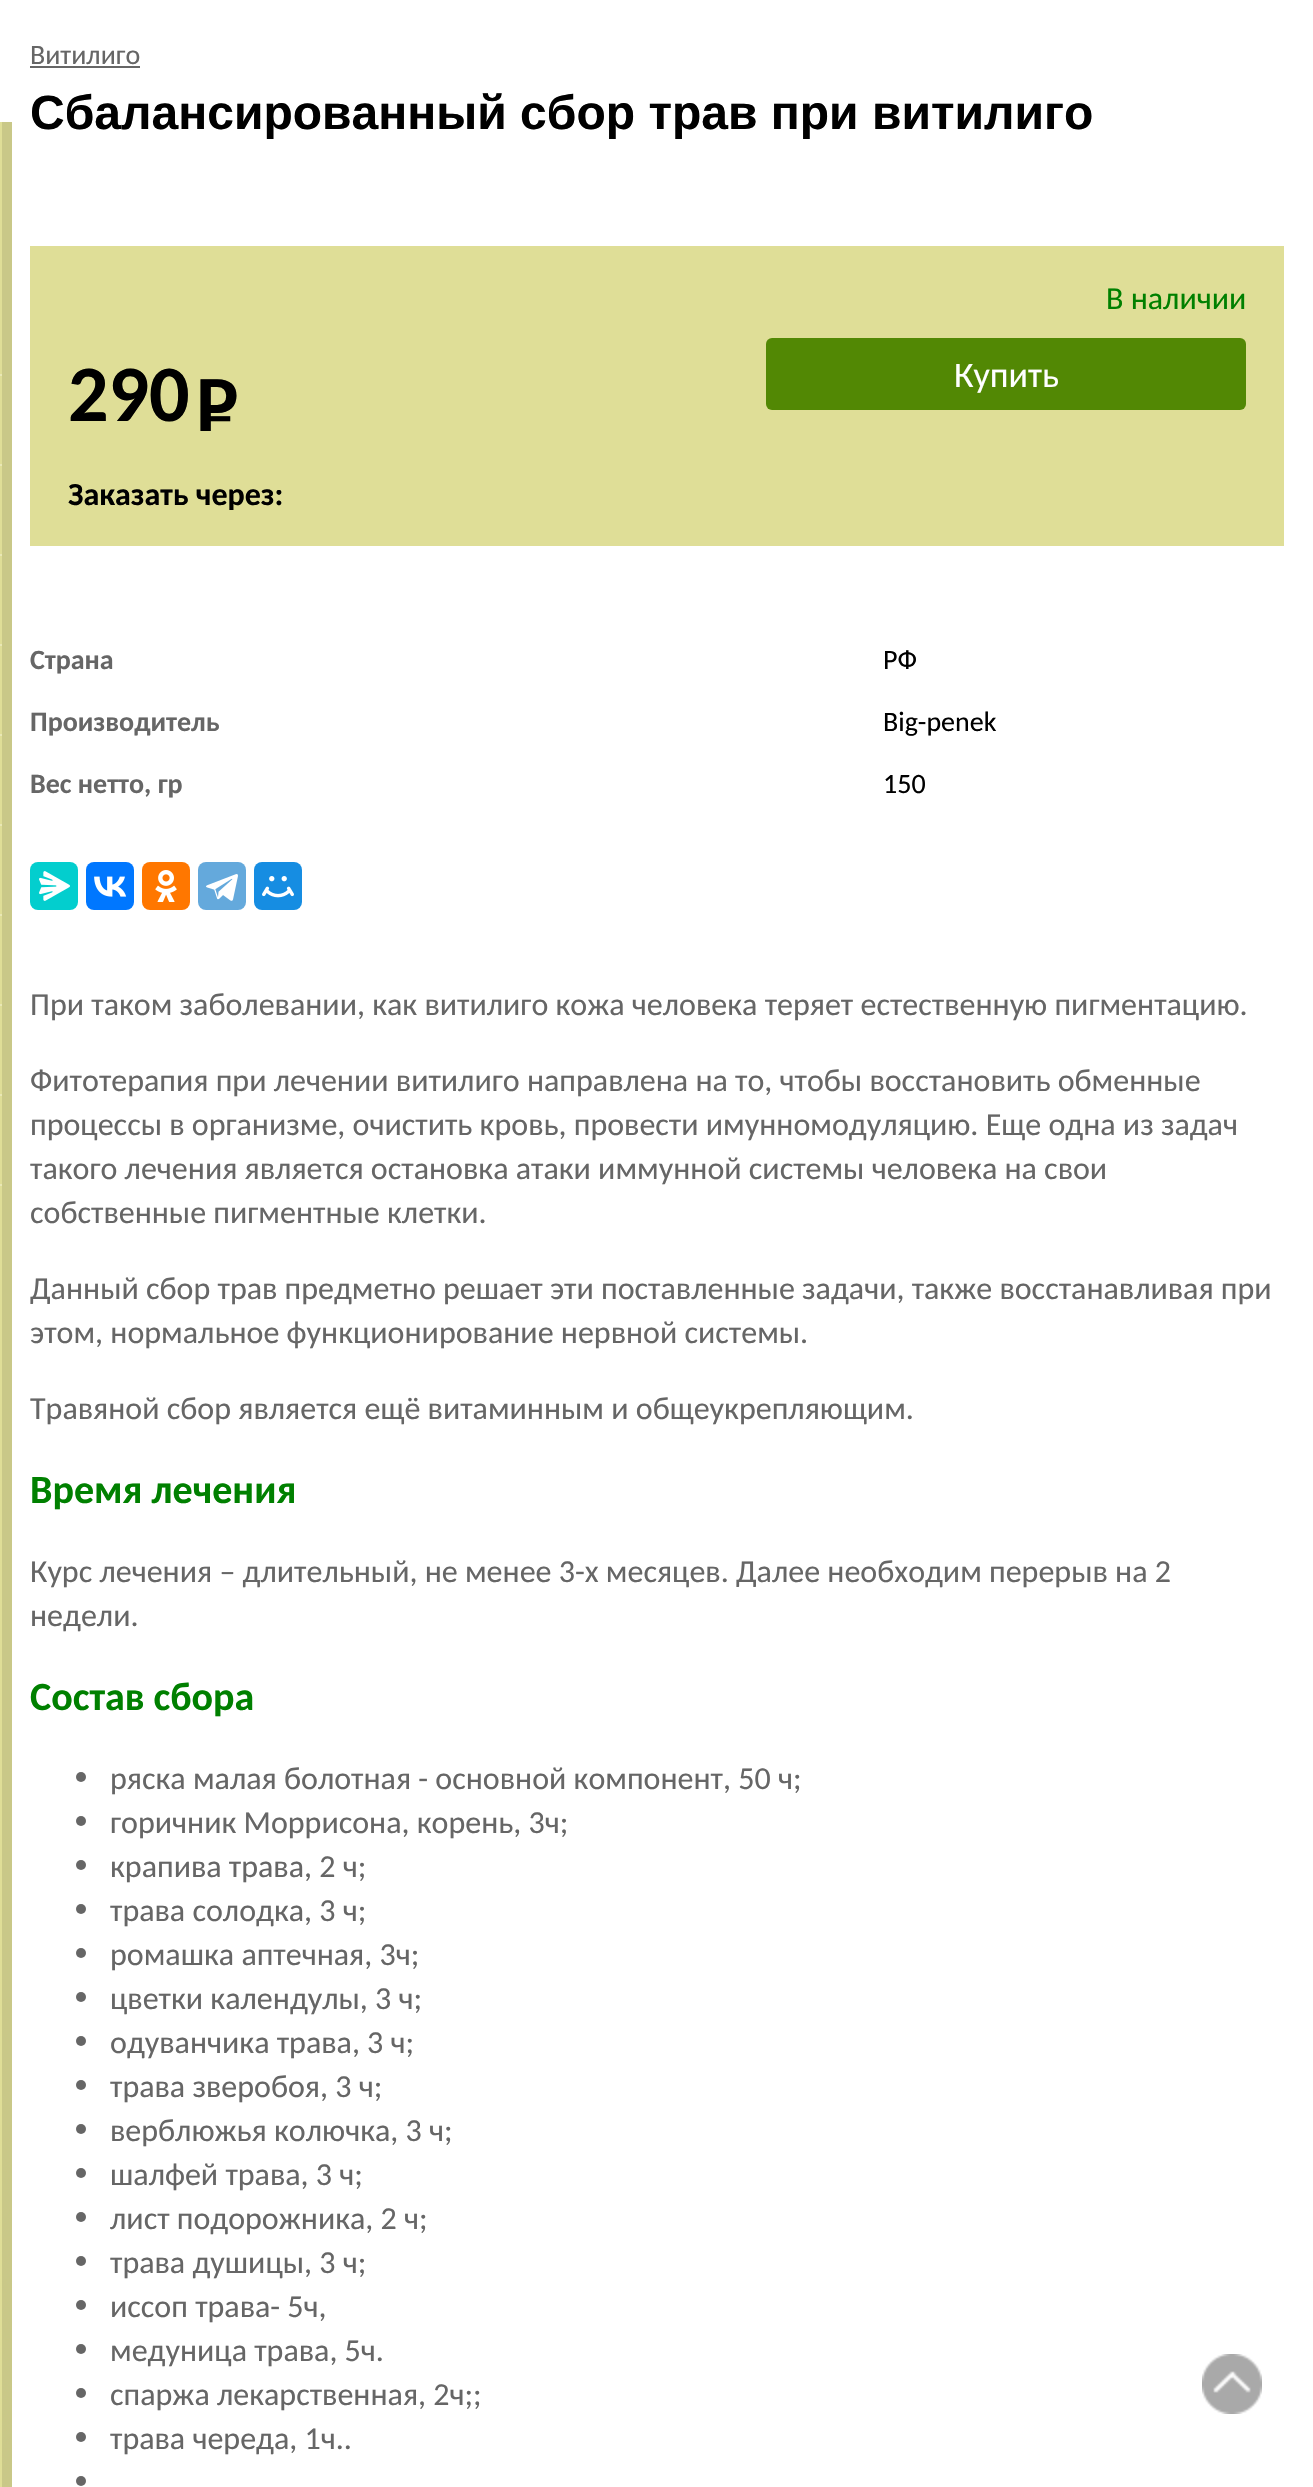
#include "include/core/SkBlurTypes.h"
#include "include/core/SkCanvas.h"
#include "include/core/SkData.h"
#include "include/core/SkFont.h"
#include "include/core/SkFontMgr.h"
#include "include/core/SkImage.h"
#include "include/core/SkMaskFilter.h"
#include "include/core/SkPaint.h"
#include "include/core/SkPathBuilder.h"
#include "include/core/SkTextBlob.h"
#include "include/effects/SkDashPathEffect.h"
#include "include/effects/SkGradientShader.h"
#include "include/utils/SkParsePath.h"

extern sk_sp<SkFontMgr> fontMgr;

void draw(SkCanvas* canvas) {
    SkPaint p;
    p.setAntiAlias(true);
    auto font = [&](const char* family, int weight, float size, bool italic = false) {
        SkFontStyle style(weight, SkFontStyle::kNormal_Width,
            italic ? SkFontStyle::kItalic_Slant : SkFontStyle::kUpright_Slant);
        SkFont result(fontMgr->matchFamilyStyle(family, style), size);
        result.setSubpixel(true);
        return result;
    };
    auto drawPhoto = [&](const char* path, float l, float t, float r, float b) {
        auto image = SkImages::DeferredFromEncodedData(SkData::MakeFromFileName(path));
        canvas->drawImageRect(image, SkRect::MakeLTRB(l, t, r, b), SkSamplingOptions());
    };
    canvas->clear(0xFFFFFFFF);
    {
        const struct { float l, t, r, b; SkColor color; } items[] = {
            {0, 122, 2, 2487, 0xFFDFDE97},
            {2, 122, 12, 2487, 0xFFC9C888},
            {0, 374, 2, 376, 0xFFE9E8B6},
            {0, 464, 2, 466, 0xFFE9E8B6},
            {0, 554, 2, 556, 0xFFE9E8B6},
            {0, 644, 2, 646, 0xFFE9E8B6},
            {0, 734, 2, 736, 0xFFE9E8B6},
            {0, 824, 2, 826, 0xFFE9E8B6},
            {0, 914, 2, 916, 0xFFE9E8B6},
            {0, 1004, 2, 1006, 0xFFE9E8B6},
            {0, 1094, 2, 1096, 0xFFE9E8B6},
            {0, 1184, 2, 1186, 0xFFE9E8B6},
        };
        for (auto [l, t, r, b, color] : items) {
            p.setColor(color);
            canvas->drawRect(SkRect::MakeLTRB(l, t, r, b), p);
        }
    }
    auto font1 = font("Carlito", 400, 28);
    p.setColor(0xFF666666);
    canvas->drawString("Витилиго", 30, 64, font1, p);
    canvas->drawRect(SkRect::MakeLTRB(30, 66, 140, 68), p);
    auto font2 = font("Liberation Sans", 700, 48);
    p.setColor(0xFF000000);
    canvas->drawString("Сбалансированный сбор трав при витилиго", 30, 129, font2, p);
    p.setColor(0xFFDFDE97);
    canvas->drawRect(SkRect::MakeLTRB(30, 246, 1284, 546), p);
    auto font3 = font("Carlito", 400, 32);
    p.setColor(0xFF008000);
    canvas->drawString("В наличии", 1106, 309, font3, p);
    auto font4 = font("Carlito", 700, 80);
    p.setColor(0xFF000000);
    canvas->drawString("290", 68, 421, font4, p);
    auto font5 = font("Carlito", 400, 80);
    canvas->drawString("–", 196, 441, font5, p);
    canvas->drawString("P", 196, 431, font4, p);
    p.setColor(0xFF528804);
    canvas->drawRoundRect(SkRect::MakeLTRB(766, 338, 1246, 410), 6, 6, p);
    auto font6 = font("Carlito", 400, 36);
    p.setColor(0xFFFFFFFF);
    canvas->drawString("Купить", 954, 387, font6, p);
    auto font7 = font("Carlito", 700, 32);
    p.setColor(0xFF000000);
    canvas->drawString("Заказать через:", 68, 505, font7, p);
    auto font8 = font("Carlito", 700, 28);
    p.setColor(0xFF666666);
    canvas->drawString("Страна", 30, 669, font8, p);
    p.setColor(0xFF000000);
    canvas->drawString("РФ", 883, 669, font1, p);
    p.setColor(0xFF666666);
    canvas->drawString("Производитель", 30, 731, font8, p);
    p.setColor(0xFF000000);
    canvas->drawString("Big-penek", 883, 731, font1, p);
    p.setColor(0xFF666666);
    canvas->drawString("Вес нетто, гр", 30, 793, font8, p);
    p.setColor(0xFF000000);
    canvas->drawString("150", 883, 793, font1, p);
    p.setColor(0xFF03CECE);
    canvas->drawRoundRect(SkRect::MakeLTRB(30, 862, 78, 910), 8, 8, p);
    drawPhoto("media/1.png", 39, 871, 70, 901);
    p.setColor(0xFF0077FF);
    canvas->drawRoundRect(SkRect::MakeLTRB(86, 862, 134, 910), 8, 8, p);
    drawPhoto("media/2.png", 94, 876, 127, 897);
    p.setColor(0xFFFF7700);
    canvas->drawRoundRect(SkRect::MakeLTRB(142, 862, 190, 910), 8, 8, p);
    drawPhoto("media/3.png", 155, 870, 177, 902);
    p.setColor(0xFF64A9DC);
    canvas->drawRoundRect(SkRect::MakeLTRB(198, 862, 246, 910), 8, 8, p);
    drawPhoto("media/4.png", 206, 874, 238, 901);
    p.setColor(0xFF168DE2);
    canvas->drawRoundRect(SkRect::MakeLTRB(254, 862, 302, 910), 8, 8, p);
    drawPhoto("media/5.png", 262, 876, 294, 898);
    p.setColor(0xFF666666);
    {
        const struct { const char* s; float x, y; } items[] = {
            {"При таком заболевании, как витилиго кожа человека теряет естественную пигментацию.", 30, 1015},
            {"Фитотерапия при лечении витилиго направлена на то, чтобы восстановить обменные", 30, 1091},
            {"процессы в организме, очистить кровь, провести имунномодуляцию. Еще одна из задач", 30, 1135},
            {"такого лечения является остановка атаки иммунной системы человека на свои", 30, 1179},
            {"собственные пигментные клетки.", 30, 1223},
            {"Данный сбор трав предметно решает эти поставленные задачи, также восстанавливая при", 30, 1299},
            {"этом, нормальное функционирование нервной системы.", 30, 1343},
            {"Травяной сбор является ещё витаминным и общеукрепляющим.", 30, 1419},
        };
        for (auto [s, x, y] : items) {
            canvas->drawString(s, x, y, font3, p);
        }
    }
    auto font9 = font("Carlito", 700, 40);
    p.setColor(0xFF008000);
    canvas->drawString("Время лечения", 30, 1503, font9, p);
    p.setColor(0xFF666666);
    canvas->drawString("Курс лечения – длительный, не менее 3-х месяцев. Далее необходим перерыв на 2", 30, 1582, font3, p);
    canvas->drawString("недели.", 30, 1626, font3, p);
    p.setColor(0xFF008000);
    canvas->drawString("Состав сбора", 30, 1710, font9, p);
    p.setColor(0xFF666666);
    canvas->drawCircle(81, 1777, 5, p);
    canvas->drawString("ряска малая болотная - основной компонент, 50 ч;", 110, 1789, font3, p);
    canvas->drawCircle(81, 1821, 5, p);
    canvas->drawString("горичник Моррисона, корень, 3ч;", 110, 1833, font3, p);
    canvas->drawCircle(81, 1865, 5, p);
    canvas->drawString("крапива трава, 2 ч;", 110, 1877, font3, p);
    canvas->drawCircle(81, 1909, 5, p);
    canvas->drawString("трава солодка, 3 ч;", 110, 1921, font3, p);
    canvas->drawCircle(81, 1953, 5, p);
    canvas->drawString("ромашка аптечная, 3ч;", 110, 1965, font3, p);
    canvas->drawCircle(81, 1997, 5, p);
    canvas->drawString("цветки календулы, 3 ч;", 110, 2009, font3, p);
    canvas->drawCircle(81, 2041, 5, p);
    canvas->drawString("одуванчика трава, 3 ч;", 110, 2053, font3, p);
    canvas->drawCircle(81, 2085, 5, p);
    canvas->drawString("трава зверобоя, 3 ч;", 110, 2097, font3, p);
    canvas->drawCircle(81, 2129, 5, p);
    canvas->drawString("верблюжья колючка, 3 ч;", 110, 2141, font3, p);
    canvas->drawCircle(81, 2173, 5, p);
    canvas->drawString("шалфей трава, 3 ч;", 110, 2185, font3, p);
    canvas->drawCircle(81, 2217, 5, p);
    canvas->drawString("лист подорожника, 2 ч;", 110, 2229, font3, p);
    canvas->drawCircle(81, 2261, 5, p);
    canvas->drawString("трава душицы, 3 ч;", 110, 2273, font3, p);
    canvas->drawCircle(81, 2305, 5, p);
    canvas->drawString("иссоп трава- 5ч,", 110, 2317, font3, p);
    canvas->drawCircle(81, 2349, 5, p);
    canvas->drawString("медуница трава, 5ч.", 110, 2361, font3, p);
    canvas->drawCircle(81, 2393, 5, p);
    canvas->drawString("спаржа лекарственная, 2ч;;", 110, 2405, font3, p);
    canvas->drawCircle(81, 2437, 5, p);
    canvas->drawString("трава череда, 1ч..", 110, 2449, font3, p);
    canvas->drawCircle(81, 2481, 5, p);
    drawPhoto("media/6.png", 1202, 2354, 1262, 2414);
}
